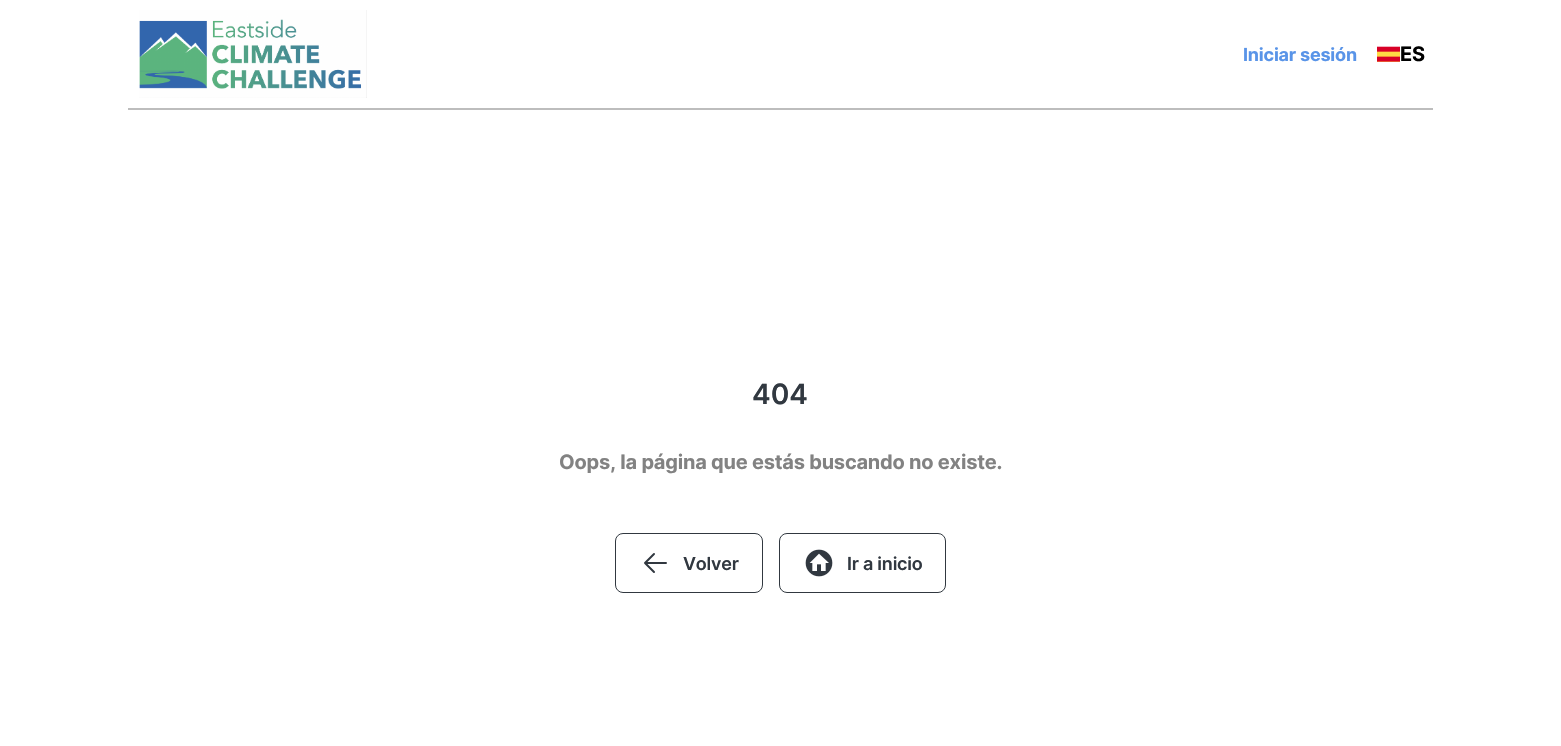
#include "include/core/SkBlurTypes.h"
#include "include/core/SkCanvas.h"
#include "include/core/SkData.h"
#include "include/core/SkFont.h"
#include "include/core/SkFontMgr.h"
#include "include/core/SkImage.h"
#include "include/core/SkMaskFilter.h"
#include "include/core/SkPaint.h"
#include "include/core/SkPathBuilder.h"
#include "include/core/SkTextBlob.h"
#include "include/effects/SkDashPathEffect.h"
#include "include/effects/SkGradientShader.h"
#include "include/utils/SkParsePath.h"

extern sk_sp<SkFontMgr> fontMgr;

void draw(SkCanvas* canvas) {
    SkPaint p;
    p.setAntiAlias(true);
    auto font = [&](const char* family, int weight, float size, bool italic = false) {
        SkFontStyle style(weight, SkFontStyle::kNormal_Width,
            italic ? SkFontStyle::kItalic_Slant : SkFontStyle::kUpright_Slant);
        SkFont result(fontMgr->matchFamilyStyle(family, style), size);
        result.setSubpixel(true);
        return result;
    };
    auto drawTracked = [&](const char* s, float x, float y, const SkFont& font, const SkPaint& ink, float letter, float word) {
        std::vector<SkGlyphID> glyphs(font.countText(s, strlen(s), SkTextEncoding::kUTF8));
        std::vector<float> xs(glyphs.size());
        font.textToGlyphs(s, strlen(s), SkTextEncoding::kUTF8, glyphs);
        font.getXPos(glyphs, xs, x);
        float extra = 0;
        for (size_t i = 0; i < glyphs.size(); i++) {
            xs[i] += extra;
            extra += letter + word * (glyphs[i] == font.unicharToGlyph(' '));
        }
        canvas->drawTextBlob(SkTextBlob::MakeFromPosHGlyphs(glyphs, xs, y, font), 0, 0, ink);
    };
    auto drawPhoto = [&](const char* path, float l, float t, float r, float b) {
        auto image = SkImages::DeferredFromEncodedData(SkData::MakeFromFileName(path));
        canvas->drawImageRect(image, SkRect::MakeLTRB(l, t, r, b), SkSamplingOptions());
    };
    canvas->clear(0xFFFFFFFF);
    p.setColor(0xFFBDBDBD);
    canvas->drawRect(SkRect::MakeLTRB(128, 108, 1433, 110), p);
    drawPhoto("media/1.png", 139, 10, 367, 98);
    auto font1 = font("Inter", 700, 18);
    p.setColor(0xFF5994E8);
    drawTracked("Iniciar sesión", 1243, 61, font1, p, -0.2f, 0);
    drawPhoto("media/2.png", 1377, 46, 1400, 62);
    auto font2 = font("Inter", 700, 20);
    p.setColor(0xFF000000);
    drawTracked("ES", 1400, 61, font2, p, -0.2f, 0);
    auto font3 = font("Inter", 600, 28);
    p.setColor(0xFF313840);
    canvas->drawString("404", 752, 404, font3, p);
    p.setColor(0xFF828282);
    drawTracked("Oops, la página que estás buscando no existe.", 559, 469, font2, p, -0.2f, 0);
    p.setStyle(SkPaint::kStroke_Style);
    p.setStrokeWidth(1);
    p.setColor(0xFF313840);
    canvas->drawRoundRect(SkRect::MakeLTRB(615.5f, 533.5f, 762.5f, 592.5f), 7.5f, 7.5f, p);
    p.setStrokeWidth(2);
    p.setStrokeCap(SkPaint::kRound_Cap);
    p.setStrokeJoin(SkPaint::kRound_Join);
    canvas->drawPath(SkPathBuilder().moveTo(654, 554).lineTo(645, 563).moveTo(654, 572).lineTo(645, 563).moveTo(645, 563).lineTo(666, 563).detach(), p);
    auto font4 = font("Inter", 600, 18);
    p.setStyle(SkPaint::kFill_Style);
    drawTracked("Volver", 683, 570, font4, p, -0.2f, 0);
    p.setStyle(SkPaint::kStroke_Style);
    p.setStrokeWidth(1);
    p.setStrokeCap(SkPaint::kButt_Cap);
    p.setStrokeJoin(SkPaint::kMiter_Join);
    canvas->drawRoundRect(SkRect::MakeLTRB(779.5f, 533.5f, 945.5f, 592.5f), 7.5f, 7.5f, p);
    drawPhoto("media/3.png", 805, 549, 833, 577);
    p.setStyle(SkPaint::kFill_Style);
    drawTracked("Ir a inicio", 847, 570, font4, p, -0.2f, 0);
}
